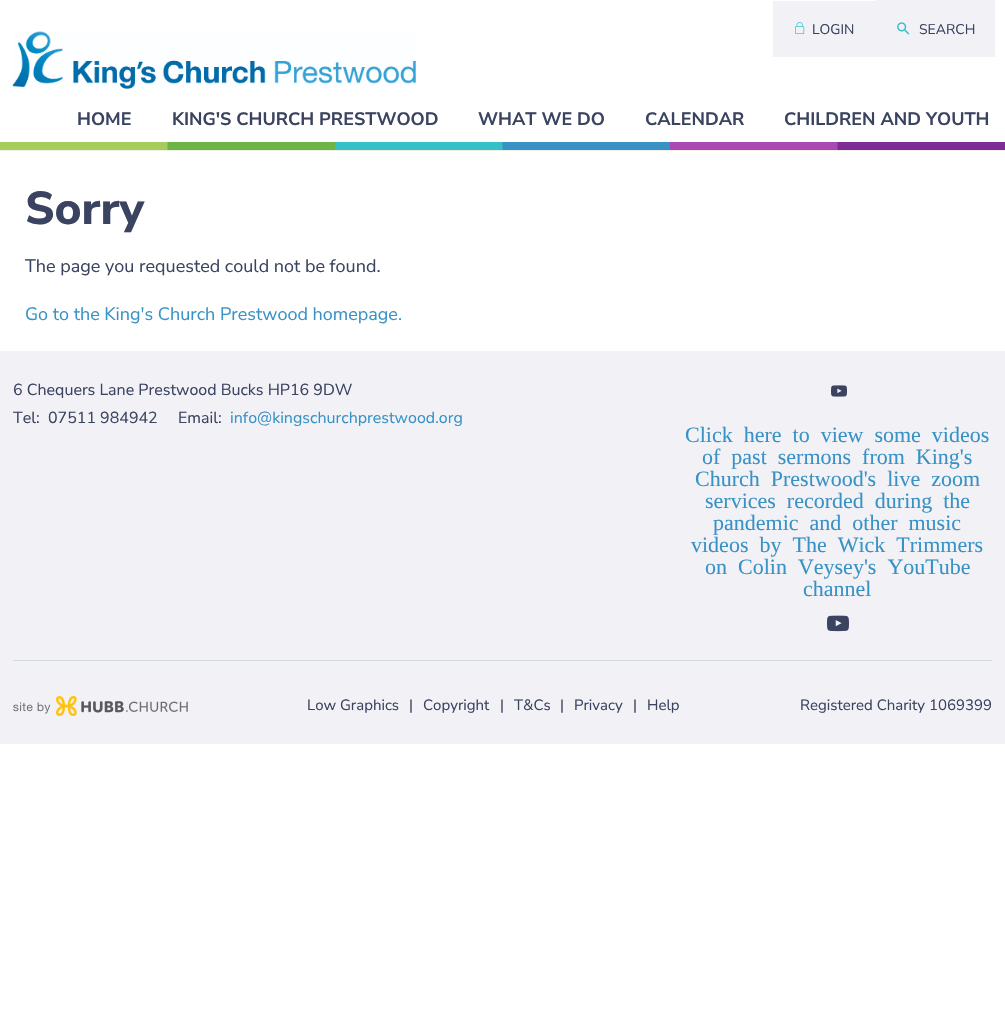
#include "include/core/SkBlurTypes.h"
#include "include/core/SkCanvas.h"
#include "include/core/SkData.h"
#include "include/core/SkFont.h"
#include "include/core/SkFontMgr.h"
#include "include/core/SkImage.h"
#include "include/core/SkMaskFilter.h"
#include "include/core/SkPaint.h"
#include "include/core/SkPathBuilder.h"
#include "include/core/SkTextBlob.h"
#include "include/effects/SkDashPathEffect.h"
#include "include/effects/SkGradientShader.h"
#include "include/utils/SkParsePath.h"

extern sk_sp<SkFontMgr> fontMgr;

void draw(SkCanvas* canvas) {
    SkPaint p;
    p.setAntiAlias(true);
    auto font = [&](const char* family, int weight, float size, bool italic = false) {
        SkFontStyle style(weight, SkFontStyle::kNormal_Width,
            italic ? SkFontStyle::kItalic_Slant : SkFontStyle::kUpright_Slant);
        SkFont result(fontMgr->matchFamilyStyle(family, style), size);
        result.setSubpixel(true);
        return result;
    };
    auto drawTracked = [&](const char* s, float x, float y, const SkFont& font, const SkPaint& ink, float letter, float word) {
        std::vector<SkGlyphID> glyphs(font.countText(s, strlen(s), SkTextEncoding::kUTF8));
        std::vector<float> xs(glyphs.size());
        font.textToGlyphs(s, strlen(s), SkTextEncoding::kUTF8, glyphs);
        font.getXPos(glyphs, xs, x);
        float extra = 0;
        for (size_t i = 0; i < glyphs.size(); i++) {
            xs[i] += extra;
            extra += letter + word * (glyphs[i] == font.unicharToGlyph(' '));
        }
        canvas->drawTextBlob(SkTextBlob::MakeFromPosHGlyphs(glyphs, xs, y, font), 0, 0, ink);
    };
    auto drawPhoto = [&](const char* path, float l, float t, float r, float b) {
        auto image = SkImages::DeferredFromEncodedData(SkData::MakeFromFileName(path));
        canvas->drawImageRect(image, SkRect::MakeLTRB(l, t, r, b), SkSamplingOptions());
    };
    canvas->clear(0xFFFFFFFF);
    p.setColor(0xFFF2F1F6);
    canvas->drawRect(SkRect::MakeLTRB(773, 1, 875, 57), p);
    drawPhoto("media/1.png", 795, 22, 805, 34);
    auto font1 = font("Nunito Sans", 400, 14);
    p.setColor(0xFF3A4360);
    canvas->drawString("LOGIN", 812, 34, font1, p);
    p.setColor(0xFFF2F1F6);
    canvas->drawRect(SkRect::MakeLTRB(875, 0, 995, 57), p);
    drawPhoto("media/2.png", 897, 22, 910, 35);
    p.setColor(0xFF3A4360);
    canvas->drawString("SEARCH", 919, 34, font1, p);
    drawPhoto("media/3.png", 12, 31, 416, 89);
    auto font2 = font("Nunito Sans", 700, 18);
    {
        const struct { const char* s; float x, y; } items[] = {
            {"HOME", 77, 125},
            {"KING'S CHURCH PRESTWOOD", 172, 125},
            {"WHAT WE DO", 478, 125},
            {"CALENDAR", 645, 125},
            {"CHILDREN AND YOUTH", 784, 125},
        };
        for (auto [s, x, y] : items) {
            canvas->drawString(s, x, y, font2, p);
        }
    }
    drawPhoto("media/4.png", 0, 142, 1005, 150);
    p.setColor(0xFFF0EFE4);
    canvas->drawRect(SkRect::MakeLTRB(0, 150, 1005, 151), p);
    auto font3 = font("Nunito Sans", 800, 46);
    p.setColor(0xFF3A4360);
    canvas->drawString("Sorry", 25, 224, font3, p);
    auto font4 = font("Nunito Sans", 400, 18);
    canvas->drawString("The page you requested could not be found.", 25, 272, font4, p);
    p.setColor(0xFF3892C5);
    canvas->drawString("Go to the King's Church Prestwood homepage.", 25, 320, font4, p);
    p.setColor(0xFFF2F1F6);
    canvas->drawRect(SkRect::MakeLTRB(0, 351, 1005, 744), p);
    auto font5 = font("Nunito Sans", 400, 16);
    p.setColor(0xFF3A4360);
    {
        const struct { const char* s; float x, y; } items[] = {
            {"6 Chequers Lane Prestwood Bucks HP16 9DW", 13, 395},
            {"Tel:", 13, 423},
            {"07511 984942", 48, 423},
            {"Email:", 178, 423},
        };
        for (auto [s, x, y] : items) {
            canvas->drawString(s, x, y, font5, p);
        }
    }
    p.setColor(0xFF3892C5);
    canvas->drawString("info@kingschurchprestwood.org", 230, 423, font5, p);
    drawPhoto("media/5.png", 831, 385, 847, 397);
    auto font6 = font("Liberation Serif", 400, 22);
    {
        const struct { const char* s; float x, y; } items[] = {
            {"Click here to view some videos", 685, 442},
            {"of past sermons from King's", 702, 464},
            {"Church Prestwood's live zoom", 695, 486},
            {"services recorded during the", 705, 508},
            {"pandemic and other music", 713, 530},
            {"videos by The Wick Trimmers", 691, 552},
            {"on Colin Veysey's YouTube", 705, 574},
        };
        for (auto [s, x, y] : items) {
            drawTracked(s, x, y, font6, p, 0, 5.5f);
        }
    }
    canvas->drawString("channel", 803, 596, font6, p);
    drawPhoto("media/6.png", 827, 615, 849, 632);
    p.setColor(0xFFD1DBDF);
    canvas->drawRect(SkRect::MakeLTRB(13, 660, 992, 661), p);
    drawPhoto("media/7.png", 13, 696, 188, 716);
    auto font7 = font("Nunito Sans", 400, 15);
    p.setColor(0xFF3A4360);
    {
        const struct { const char* s; float x, y; } items[] = {
            {"Low Graphics", 307, 710},
            {"|", 409, 710},
            {"Copyright", 423, 710},
            {"|", 500, 710},
            {"T&Cs", 514, 710},
            {"|", 560, 710},
            {"Privacy", 574, 710},
            {"|", 633, 710},
            {"Help", 647, 710},
            {"Registered Charity 1069399", 800, 710},
        };
        for (auto [s, x, y] : items) {
            canvas->drawString(s, x, y, font7, p);
        }
    }
}
